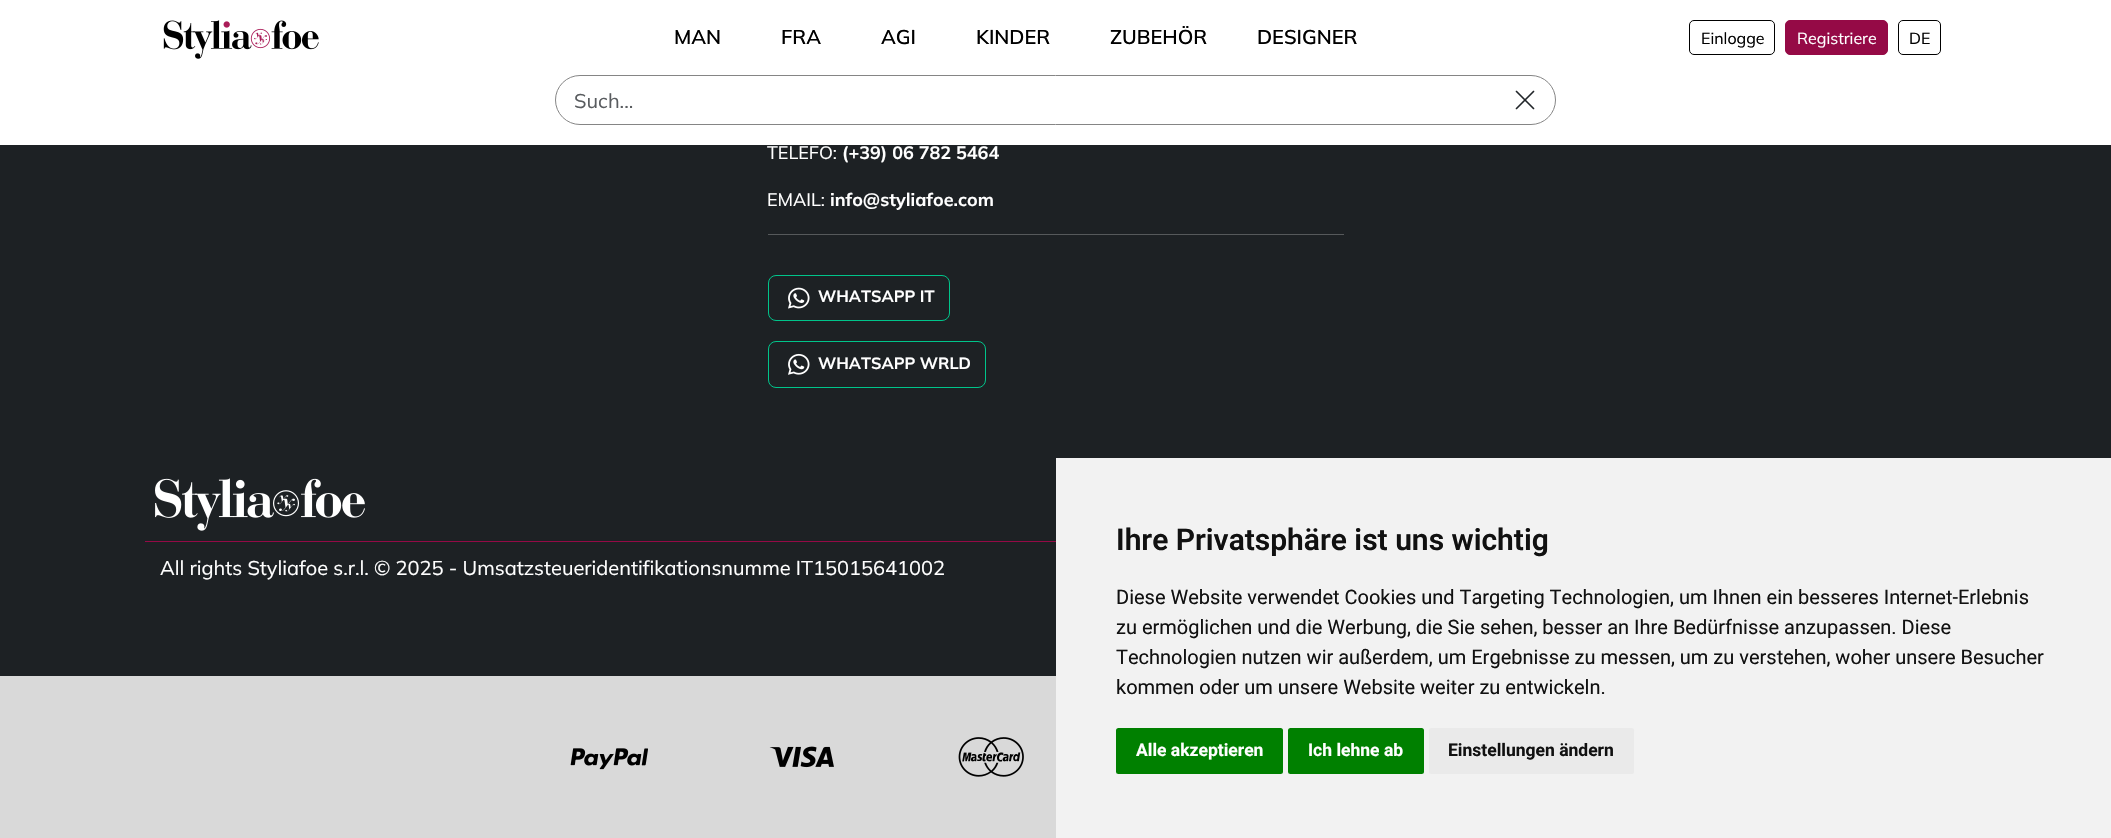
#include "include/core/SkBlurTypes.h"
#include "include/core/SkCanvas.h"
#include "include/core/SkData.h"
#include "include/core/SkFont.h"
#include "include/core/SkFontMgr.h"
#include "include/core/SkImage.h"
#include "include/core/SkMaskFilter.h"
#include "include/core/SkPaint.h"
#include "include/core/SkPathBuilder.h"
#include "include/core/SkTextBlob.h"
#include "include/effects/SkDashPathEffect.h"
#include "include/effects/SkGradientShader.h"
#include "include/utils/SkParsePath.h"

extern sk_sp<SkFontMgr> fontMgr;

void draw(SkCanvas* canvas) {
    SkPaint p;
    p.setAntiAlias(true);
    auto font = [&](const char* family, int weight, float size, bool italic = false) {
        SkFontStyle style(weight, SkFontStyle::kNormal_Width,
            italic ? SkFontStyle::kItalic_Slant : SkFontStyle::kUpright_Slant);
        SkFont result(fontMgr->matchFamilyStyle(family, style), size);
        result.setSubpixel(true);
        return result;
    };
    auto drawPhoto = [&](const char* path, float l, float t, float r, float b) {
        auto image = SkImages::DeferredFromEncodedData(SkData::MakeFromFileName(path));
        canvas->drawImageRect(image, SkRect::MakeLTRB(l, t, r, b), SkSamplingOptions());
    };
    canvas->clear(0xFFD9D9D9);
    p.setColor(0xFFFFFFFF);
    canvas->drawRect(SkRect::MakeLTRB(0, 0, 2111, 145), p);
    drawPhoto("media/1.png", 163, 20, 319, 59);
    auto font1 = font("Mulish", 600, 20);
    p.setColor(0xFF000000);
    {
        const struct { const char* s; float x, y; } items[] = {
            {"MAN", 674, 44},
            {"FRA", 781, 44},
            {"AGI", 881, 44},
            {"KINDER", 976, 44},
            {"ZUBEHÖR", 1110, 44},
            {"DESIGNER", 1257, 44},
        };
        for (auto [s, x, y] : items) {
            canvas->drawString(s, x, y, font1, p);
        }
    }
    p.setStyle(SkPaint::kStroke_Style);
    p.setStrokeWidth(1);
    canvas->drawRoundRect(SkRect::MakeLTRB(1689.5f, 20.5f, 1774.5f, 54.5f), 4.5f, 4.5f, p);
    auto font2 = font("Mulish", 400, 16);
    p.setStyle(SkPaint::kFill_Style);
    canvas->drawString("Einlogge", 1701, 44, font2, p);
    p.setColor(0xFF950A46);
    canvas->drawRoundRect(SkRect::MakeLTRB(1785.5f, 20.5f, 1887.5f, 54.5f), 4.5f, 4.5f, p);
    p.setStyle(SkPaint::kStroke_Style);
    canvas->drawRoundRect(SkRect::MakeLTRB(1785.5f, 20.5f, 1887.5f, 54.5f), 4.5f, 4.5f, p);
    p.setStyle(SkPaint::kFill_Style);
    p.setColor(0xFFFFFFFF);
    canvas->drawString("Registriere", 1797, 44, font2, p);
    p.setStyle(SkPaint::kStroke_Style);
    p.setColor(0xFF000000);
    canvas->drawRoundRect(SkRect::MakeLTRB(1898.5f, 20.5f, 1940.5f, 54.5f), 4.5f, 4.5f, p);
    p.setStyle(SkPaint::kFill_Style);
    canvas->drawString("DE", 1909, 44, font2, p);
    p.setStyle(SkPaint::kStroke_Style);
    p.setColor(0xFF858585);
    canvas->drawRoundRect(SkRect::MakeLTRB(555.5f, 75.5f, 1555.5f, 124.5f), 24.5f, 24.5f, p);
    auto font3 = font("Mulish", 400, 20);
    p.setStyle(SkPaint::kFill_Style);
    p.setColor(0xFF595C5F);
    canvas->drawString("Such...", 574, 108, font3, p);
    drawPhoto("media/2.png", 1515, 90, 1535, 110);
    p.setColor(0xFF1D2124);
    canvas->drawRect(SkRect::MakeLTRB(0, 145, 2111, 676), p);
    auto font4 = font("Mulish", 400, 18);
    p.setColor(0xFFFFFFFF);
    canvas->drawString("TELEFO:", 767, 159, font4, p);
    auto font5 = font("Mulish", 700, 18);
    canvas->drawString("(+39) 06 782 5464", 842, 159, font5, p);
    canvas->drawString("EMAIL:", 767, 206, font4, p);
    canvas->drawString("info@styliafoe.com", 830, 206, font5, p);
    p.setColor(0xFF56595B);
    canvas->drawRect(SkRect::MakeLTRB(768, 234, 1344, 235), p);
    p.setStyle(SkPaint::kStroke_Style);
    p.setColor(0xFF00C48A);
    canvas->drawRoundRect(SkRect::MakeLTRB(768.5f, 275.5f, 949.5f, 320.5f), 7.5f, 7.5f, p);
    drawPhoto("media/3.png", 788, 287, 810, 309);
    auto font6 = font("Mulish", 700, 16.25f);
    p.setStyle(SkPaint::kFill_Style);
    p.setColor(0xFFFFFFFF);
    canvas->drawString("WHATSAPP IT", 818, 302, font6, p);
    p.setStyle(SkPaint::kStroke_Style);
    p.setColor(0xFF00C48A);
    canvas->drawRoundRect(SkRect::MakeLTRB(768.5f, 341.5f, 985.5f, 387.5f), 7.5f, 7.5f, p);
    drawPhoto("media/4.png", 788, 353, 810, 375);
    p.setStyle(SkPaint::kFill_Style);
    p.setColor(0xFFFFFFFF);
    canvas->drawString("WHATSAPP WRLD", 818, 369, font6, p);
    p.setColor(0xFF950A46);
    canvas->drawRect(SkRect::MakeLTRB(145, 541, 1056, 542), p);
    drawPhoto("media/5.png", 155, 478, 365, 531);
    p.setColor(0xFFFFFFFF);
    canvas->drawString("All rights Styliafoe s.r.l. © 2025 - Umsatzsteueridentifikationsnumme IT15015641002", 160, 575, font3, p);
    drawPhoto("media/6.png", 570, 748, 648, 770);
    drawPhoto("media/7.png", 769, 746, 834, 768);
    drawPhoto("media/8.png", 958, 737, 1024, 777);
    p.setColor(0xFFF2F2F2);
    canvas->drawRect(SkRect::MakeLTRB(1056, 458, 2111, 838), p);
    auto font7 = font("Roboto", 600, 30);
    p.setColor(0xFF111111);
    canvas->drawString("Ihre Privatsphäre ist uns wichtig", 1116, 550, font7, p);
    auto font8 = font("Roboto", 400, 20);
    {
        const struct { const char* s; float x, y; } items[] = {
            {"Diese Website verwendet Cookies und Targeting Technologien, um Ihnen ein besseres Internet-Erlebnis", 1116, 604},
            {"zu ermöglichen und die Werbung, die Sie sehen, besser an Ihre Bedürfnisse anzupassen. Diese", 1116, 634},
            {"Technologien nutzen wir außerdem, um Ergebnisse zu messen, um zu verstehen, woher unsere Besucher", 1116, 664},
            {"kommen oder um unsere Website weiter zu entwickeln.", 1116, 694},
        };
        for (auto [s, x, y] : items) {
            canvas->drawString(s, x, y, font8, p);
        }
    }
    p.setColor(0xFF008000);
    canvas->drawRoundRect(SkRect::MakeLTRB(1116, 728, 1283, 774), 2.5f, 2.5f, p);
    auto font9 = font("Roboto", 700, 17.5f);
    p.setColor(0xFFFFFFFF);
    canvas->drawString("Alle akzeptieren", 1136, 756, font9, p);
    p.setColor(0xFF008000);
    canvas->drawRoundRect(SkRect::MakeLTRB(1288, 728, 1424, 774), 2.5f, 2.5f, p);
    p.setColor(0xFFFFFFFF);
    canvas->drawString("Ich lehne ab", 1308, 756, font9, p);
    p.setColor(0xFFEAEAEA);
    canvas->drawRoundRect(SkRect::MakeLTRB(1429, 728, 1634, 774), 2.5f, 2.5f, p);
    p.setColor(0xFF111111);
    canvas->drawString("Einstellungen ändern", 1448, 756, font9, p);
}
